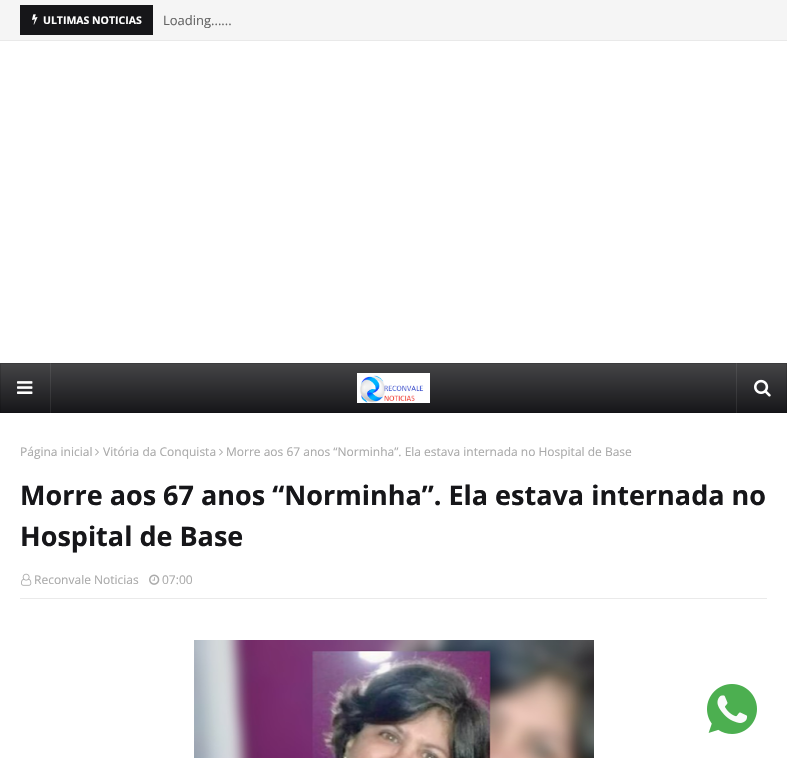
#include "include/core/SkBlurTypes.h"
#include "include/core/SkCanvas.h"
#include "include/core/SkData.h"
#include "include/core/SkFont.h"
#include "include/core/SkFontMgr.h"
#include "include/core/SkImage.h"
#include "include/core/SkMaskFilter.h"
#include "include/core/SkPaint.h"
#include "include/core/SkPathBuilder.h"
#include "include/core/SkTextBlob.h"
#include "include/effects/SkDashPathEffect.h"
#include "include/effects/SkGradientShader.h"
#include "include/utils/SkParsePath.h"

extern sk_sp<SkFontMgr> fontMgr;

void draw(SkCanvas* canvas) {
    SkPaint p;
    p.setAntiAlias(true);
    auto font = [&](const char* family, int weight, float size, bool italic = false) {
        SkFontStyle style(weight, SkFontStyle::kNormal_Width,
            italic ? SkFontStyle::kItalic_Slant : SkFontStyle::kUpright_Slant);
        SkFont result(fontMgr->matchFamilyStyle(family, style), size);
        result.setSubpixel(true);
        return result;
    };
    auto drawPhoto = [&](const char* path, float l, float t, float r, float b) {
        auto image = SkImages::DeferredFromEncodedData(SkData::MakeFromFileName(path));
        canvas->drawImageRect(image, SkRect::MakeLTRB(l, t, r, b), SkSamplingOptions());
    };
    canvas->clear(0xFFFFFFFF);
    {
        const struct { float l, t, r, b; SkColor color; } items[] = {
            {0, 0, 787, 40, 0xFFF5F5F5},
            {0, 40, 787, 41, 0xFFE9E9E9},
            {20, 5, 153, 35, 0xFF161619},
        };
        for (auto [l, t, r, b, color] : items) {
            p.setColor(color);
            canvas->drawRect(SkRect::MakeLTRB(l, t, r, b), p);
        }
    }
    drawPhoto("media/1.png", 32, 14, 38, 25);
    auto font1 = font("Open Sans", 700, 10.5f);
    p.setColor(0xFFFFFFFF);
    canvas->drawString("ULTIMAS NOTICIAS", 43, 24, font1, p);
    auto font2 = font("Open Sans", 400, 13);
    p.setColor(0xFF656565);
    canvas->drawString("Loading......", 163, 25, font2, p);
    {
        const SkColor colors[] = {0xFF454547, 0xFF161619};
        const float stops[] = {0, 1};
        const SkPoint ends[] = {{394, 363}, {394, 413}};
        p.setShader(SkGradientShader::MakeLinear(ends, colors, stops, 2, SkTileMode::kClamp));
        p.setAlpha(255);
    }
    canvas->drawRect(SkRect::MakeLTRB(0, 363, 787, 413), p);
    p.setStyle(SkPaint::kStroke_Style);
    p.setStrokeWidth(1);
    p.setShader(nullptr);
    p.setColor(0x26000000);
    canvas->drawRect(SkRect::MakeLTRB(0.5f, 363.5f, 786.5f, 412.5f), p);
    p.setStyle(SkPaint::kFill_Style);
    p.setColor(0x14FFFFFF);
    canvas->drawRect(SkRect::MakeLTRB(50, 363, 51, 413), p);
    drawPhoto("media/2.png", 17, 381, 33, 394);
    drawPhoto("media/3.png", 357, 373, 430, 403);
    canvas->drawRect(SkRect::MakeLTRB(736, 363, 737, 413), p);
    drawPhoto("media/4.png", 754, 379, 771, 397);
    auto font3 = font("Open Sans", 400, 12);
    p.setColor(0xFFAAAAAA);
    canvas->drawString("Página inicial", 20, 456, font3, p);
    drawPhoto("media/5.png", 95, 448, 99, 456);
    canvas->drawString("Vitória da Conquista", 103, 456, font3, p);
    drawPhoto("media/5.png", 219, 448, 223, 456);
    canvas->drawString("Morre aos 67 anos “Norminha”. Ela estava internada no Hospital de Base", 226, 456, font3, p);
    auto font4 = font("Open Sans", 700, 27);
    p.setColor(0xFF161619);
    canvas->drawString("Morre aos 67 anos “Norminha”. Ela estava internada no", 20, 505, font4, p);
    canvas->drawString("Hospital de Base", 20, 546, font4, p);
    p.setColor(0xFFEAEAEA);
    canvas->drawRect(SkRect::MakeLTRB(20, 598, 767, 599), p);
    drawPhoto("media/6.png", 21, 573, 32, 586);
    p.setColor(0xFFAAAAAA);
    canvas->drawString("Reconvale Noticias", 34, 584, font3, p);
    drawPhoto("media/7.png", 149, 574, 160, 585);
    canvas->drawString("07:00", 162, 584, font3, p);
    drawPhoto("media/8.png", 194, 640, 594, 758);
    drawPhoto("media/9.png", 707, 684, 757, 734);
}
